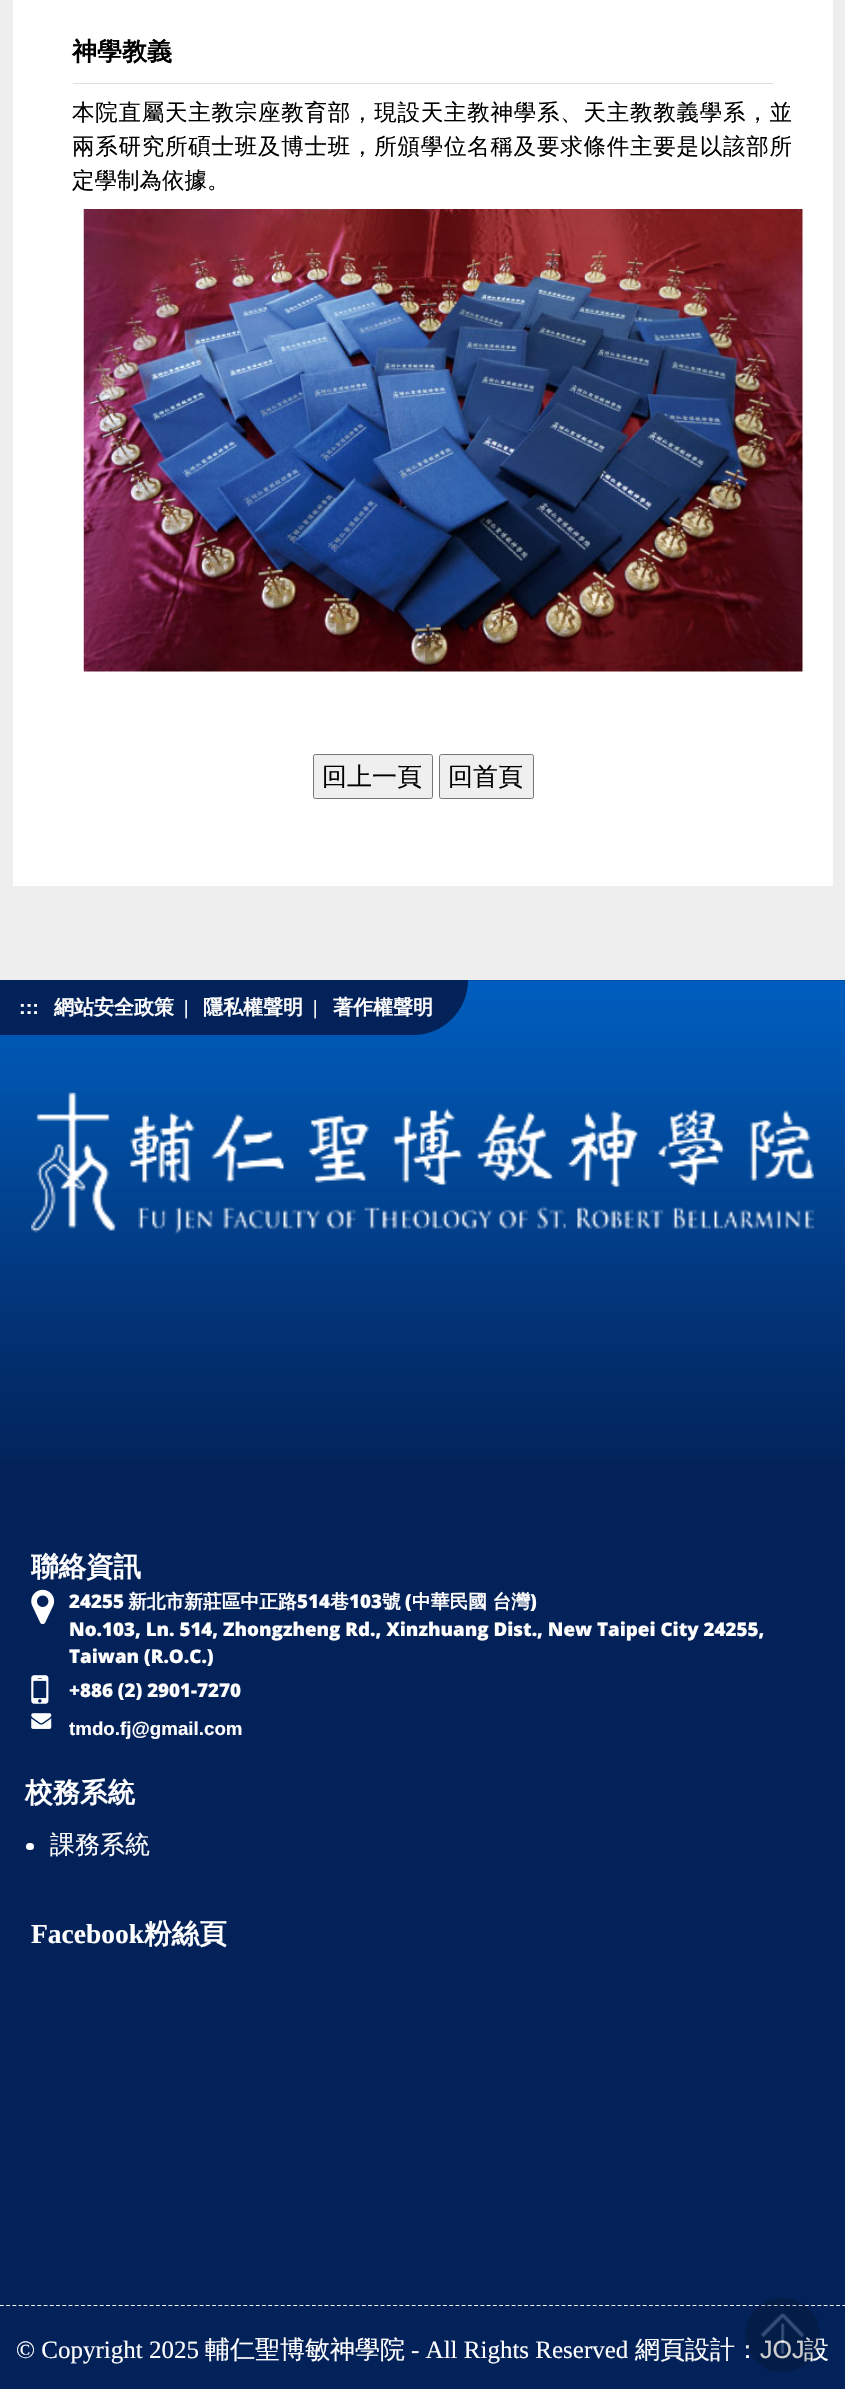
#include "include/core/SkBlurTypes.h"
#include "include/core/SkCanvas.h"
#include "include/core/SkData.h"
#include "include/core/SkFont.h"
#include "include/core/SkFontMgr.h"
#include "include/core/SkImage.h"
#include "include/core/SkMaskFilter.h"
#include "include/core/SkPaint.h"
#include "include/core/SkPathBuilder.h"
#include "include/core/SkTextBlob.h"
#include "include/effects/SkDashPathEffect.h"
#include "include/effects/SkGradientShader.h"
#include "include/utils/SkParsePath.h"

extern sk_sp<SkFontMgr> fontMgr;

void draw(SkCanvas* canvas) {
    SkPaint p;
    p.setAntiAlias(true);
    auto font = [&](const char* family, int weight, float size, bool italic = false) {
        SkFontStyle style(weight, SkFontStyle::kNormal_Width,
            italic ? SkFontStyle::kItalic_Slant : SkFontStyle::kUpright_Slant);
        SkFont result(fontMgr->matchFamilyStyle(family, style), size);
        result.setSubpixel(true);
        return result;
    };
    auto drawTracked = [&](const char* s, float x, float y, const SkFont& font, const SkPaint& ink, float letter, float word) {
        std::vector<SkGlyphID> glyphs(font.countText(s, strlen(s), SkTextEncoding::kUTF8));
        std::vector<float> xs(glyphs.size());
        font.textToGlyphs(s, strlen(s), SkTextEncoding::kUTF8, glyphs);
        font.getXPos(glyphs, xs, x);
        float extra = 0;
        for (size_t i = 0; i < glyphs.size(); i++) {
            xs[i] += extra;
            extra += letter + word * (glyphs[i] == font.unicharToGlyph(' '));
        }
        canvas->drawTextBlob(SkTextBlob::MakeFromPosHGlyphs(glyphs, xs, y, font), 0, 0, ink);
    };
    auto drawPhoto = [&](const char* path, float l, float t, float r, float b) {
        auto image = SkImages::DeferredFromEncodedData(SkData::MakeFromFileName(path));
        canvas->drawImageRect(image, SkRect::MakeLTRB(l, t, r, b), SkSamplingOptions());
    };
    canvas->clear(0xFFEEEEEE);
    p.setColor(0xFFFFFFFF);
    canvas->drawRect(SkRect::MakeLTRB(13, 0, 833, 886), p);
    p.setColor(0xFFDEDEDE);
    canvas->drawRect(SkRect::MakeLTRB(73, 83, 773, 84), p);
    auto font1 = font("WenQuanYi Zen Hei", 700, 25);
    p.setColor(0xFF000000);
    canvas->drawString("神學教義", 72, 60, font1, p);
    auto font2 = font("WenQuanYi Zen Hei", 500, 22.5f);
    drawTracked("本院直屬天主教宗座教育部，現設天主教神學系、天主教教義學系，並", 72, 120, font2, p, 0.75f, 0);
    drawTracked("兩系研究所碩士班及博士班，所頒學位名稱及要求條件主要是以該部所", 72, 154, font2, p, 0.75f, 0);
    canvas->drawString("定學制為依據。", 72, 188, font2, p);
    drawPhoto("media/1.png", 83, 209, 803, 672);
    p.setColor(0xFFEFEFEF);
    canvas->drawRoundRect(SkRect::MakeLTRB(313.5f, 754.5f, 432.5f, 798.5f), 2, 2, p);
    p.setStyle(SkPaint::kStroke_Style);
    p.setStrokeWidth(1);
    p.setColor(0xFF767676);
    canvas->drawRoundRect(SkRect::MakeLTRB(313.5f, 754.5f, 432.5f, 798.5f), 2, 2, p);
    auto font3 = font("WenQuanYi Zen Hei", 500, 25);
    p.setStyle(SkPaint::kFill_Style);
    p.setColor(0xFF000000);
    canvas->drawString("回上一頁", 322, 785, font3, p);
    p.setColor(0xFFEFEFEF);
    canvas->drawRoundRect(SkRect::MakeLTRB(439.5f, 754.5f, 533.5f, 798.5f), 2, 2, p);
    p.setStyle(SkPaint::kStroke_Style);
    p.setColor(0xFF767676);
    canvas->drawRoundRect(SkRect::MakeLTRB(439.5f, 754.5f, 533.5f, 798.5f), 2, 2, p);
    p.setStyle(SkPaint::kFill_Style);
    p.setColor(0xFF000000);
    canvas->drawString("回首頁", 448, 785, font3, p);
    p.setColor(0xFF032259);
    canvas->drawRect(SkRect::MakeLTRB(0, 980, 845, 2389), p);
    drawPhoto("media/2.png", 0, 980, 845, 1460);
    canvas->drawPath(SkPathBuilder().moveTo(0, 980).lineTo(468, 980).cubicTo(468, 1010.5f, 443.5f, 1035, 413, 1035).lineTo(0, 1035).close().detach(), p);
    auto font4 = font("Liberation Sans", 700, 20);
    p.setColor(0xFFFFFFFF);
    canvas->drawString(":::", 19, 1014, font4, p);
    auto font5 = font("WenQuanYi Zen Hei", 700, 20);
    canvas->drawString("網站安全政策", 54, 1014, font5, p);
    auto font6 = font("Liberation Serif", 700, 20);
    canvas->drawString("|", 184, 1014, font6, p);
    canvas->drawString("隱私權聲明", 203, 1014, font5, p);
    canvas->drawString("|", 313, 1014, font6, p);
    canvas->drawString("著作權聲明", 333, 1014, font5, p);
    drawPhoto("media/3.png", 31, 1092, 814, 1234);
    auto font7 = font("WenQuanYi Zen Hei", 700, 27.5f);
    canvas->drawString("聯絡資訊", 31, 1576, font7, p);
    drawPhoto("media/4.png", 31, 1589, 55, 1625);
    auto font8 = font("Open Sans", 800, 18.75f);
    canvas->drawString("24255", 69, 1608, font8, p);
    auto font9 = font("WenQuanYi Zen Hei", 700, 18.75f);
    canvas->drawString("新北市新莊區中正路", 128, 1608, font9, p);
    canvas->drawString("514", 297, 1608, font8, p);
    canvas->drawString("巷", 330, 1608, font9, p);
    canvas->drawString("103", 349, 1608, font8, p);
    canvas->drawString("號", 382, 1608, font9, p);
    canvas->drawString("(", 405, 1608, font8, p);
    canvas->drawString("中華民國 台灣", 412, 1608, font9, p);
    {
        const struct { const char* s; float x, y; } items[] = {
            {")", 530, 1608},
            {"No.103, Ln. 514, Zhongzheng Rd., Xinzhuang Dist., New Taipei City 24255,", 69, 1636},
            {"Taiwan (R.O.C.)", 69, 1663},
        };
        for (auto [s, x, y] : items) {
            canvas->drawString(s, x, y, font8, p);
        }
    }
    drawPhoto("media/5.png", 31, 1675, 49, 1704);
    canvas->drawString("+886 (2) 2901-7270", 69, 1697, font8, p);
    drawPhoto("media/6.png", 31, 1713, 52, 1729);
    auto font10 = font("Liberation Sans", 700, 18.75f);
    canvas->drawString("tmdo.fj@gmail.com", 69, 1735, font10, p);
    canvas->drawString("校務系統", 25, 1802, font7, p);
    canvas->drawRoundRect(SkRect::MakeLTRB(26, 1843, 34, 1850), 3.5f, 3.5f, p);
    canvas->drawString("課務系統", 50, 1853, font3, p);
    auto font11 = font("Liberation Serif", 700, 27.5f);
    canvas->drawString("Facebook", 31, 1943, font11, p);
    canvas->drawString("粉絲頁", 144, 1943, font7, p);
    p.setStyle(SkPaint::kStroke_Style);
    p.setStrokeWidth(1.2f);
    p.setPathEffect(SkDashPathEffect::Make({{3.75f, 2.49f}}, 0));
    canvas->drawPath(SkPathBuilder().moveTo(0, 2305.5f).lineTo(845, 2305.5f).detach(), p);
    p.setPathEffect(nullptr);
    auto font12 = font("Liberation Serif", 400, 25);
    p.setStyle(SkPaint::kFill_Style);
    canvas->drawString("© Copyright 2025", 16, 2358, font12, p);
    canvas->drawString("輔仁聖博敏神學院", 205, 2358, font3, p);
    canvas->drawString("- All Rights Reserved", 411, 2358, font12, p);
    canvas->drawString("網頁設計：", 635, 2358, font3, p);
    auto font13 = font("Liberation Sans", 400, 25);
    canvas->drawString("JOJ", 760, 2358, font13, p);
    canvas->drawString("設", 804, 2358, font3, p);
    drawPhoto("media/7.png", 745, 2297, 820, 2373);
}
